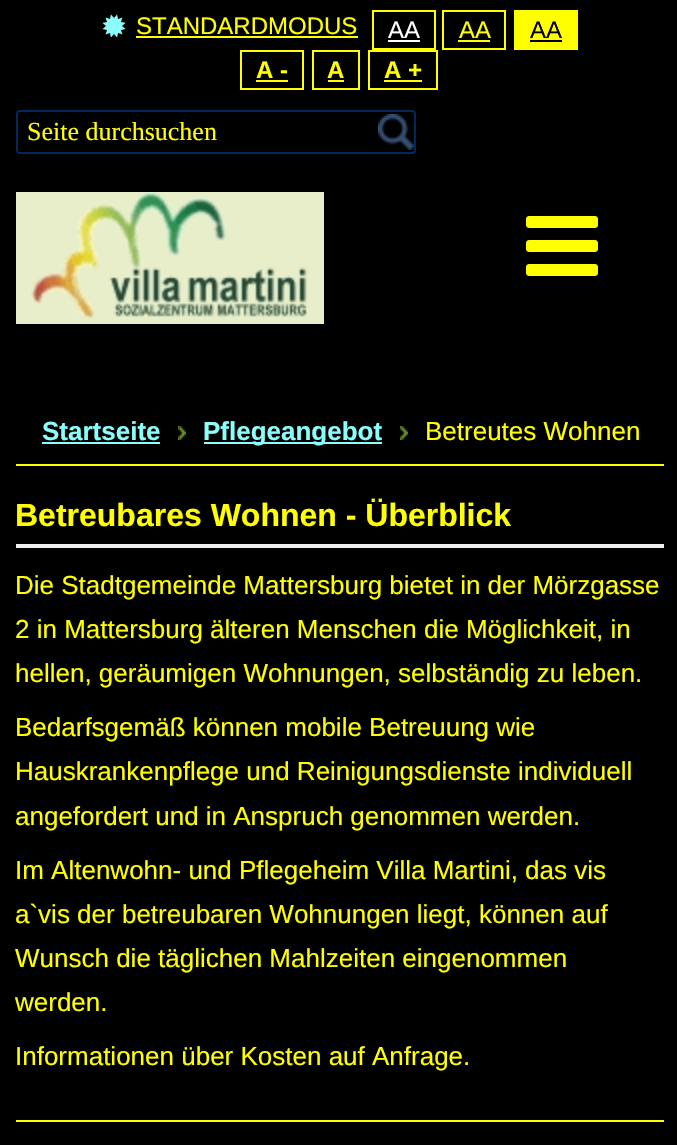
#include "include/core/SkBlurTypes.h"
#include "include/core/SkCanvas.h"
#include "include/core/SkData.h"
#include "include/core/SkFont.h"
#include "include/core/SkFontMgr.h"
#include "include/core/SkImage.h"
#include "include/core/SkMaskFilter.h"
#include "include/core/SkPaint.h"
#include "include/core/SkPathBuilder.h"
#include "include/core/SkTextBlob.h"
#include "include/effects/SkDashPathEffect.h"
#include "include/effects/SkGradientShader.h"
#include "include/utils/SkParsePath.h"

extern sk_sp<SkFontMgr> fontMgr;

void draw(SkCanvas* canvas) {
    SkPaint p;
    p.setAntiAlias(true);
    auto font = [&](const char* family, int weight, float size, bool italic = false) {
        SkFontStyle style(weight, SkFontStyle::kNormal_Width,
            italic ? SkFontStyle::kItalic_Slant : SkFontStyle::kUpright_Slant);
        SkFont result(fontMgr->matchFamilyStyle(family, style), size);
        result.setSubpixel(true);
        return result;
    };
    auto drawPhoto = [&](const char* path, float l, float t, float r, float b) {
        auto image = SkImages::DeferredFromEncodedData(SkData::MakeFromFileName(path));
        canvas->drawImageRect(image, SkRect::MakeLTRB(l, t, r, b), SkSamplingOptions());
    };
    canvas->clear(0xFF000000);
    drawPhoto("media/1.png", 102, 14, 126, 38);
    auto font1 = font("Liberation Sans", 400, 24);
    p.setColor(0xFFFFFF00);
    canvas->drawString("STANDARDMODUS", 136, 34, font1, p);
    canvas->drawRect(SkRect::MakeLTRB(136, 36, 358, 38), p);
    p.setStyle(SkPaint::kStroke_Style);
    p.setStrokeWidth(2);
    canvas->drawRect(SkRect::MakeLTRB(373, 11, 435, 49), p);
    p.setStyle(SkPaint::kFill_Style);
    p.setColor(0xFFFFFFFF);
    canvas->drawString("AA", 388, 38, font1, p);
    canvas->drawRect(SkRect::MakeLTRB(388, 40, 420, 42), p);
    p.setStyle(SkPaint::kStroke_Style);
    p.setColor(0xFFFFFF00);
    canvas->drawRect(SkRect::MakeLTRB(443, 11, 505, 49), p);
    p.setStyle(SkPaint::kFill_Style);
    canvas->drawString("AA", 459, 38, font1, p);
    canvas->drawRect(SkRect::MakeLTRB(458, 40, 490, 42), p);
    canvas->drawRect(SkRect::MakeLTRB(514, 10, 578, 50), p);
    p.setColor(0xFF000000);
    canvas->drawString("AA", 530, 38, font1, p);
    canvas->drawRect(SkRect::MakeLTRB(530, 40, 562, 42), p);
    p.setStyle(SkPaint::kStroke_Style);
    p.setColor(0xFFFFFF00);
    canvas->drawRect(SkRect::MakeLTRB(241, 51, 303, 89), p);
    auto font2 = font("Liberation Sans", 700, 24);
    p.setStyle(SkPaint::kFill_Style);
    canvas->drawString("A -", 256, 78, font2, p);
    canvas->drawRect(SkRect::MakeLTRB(256, 80, 288, 82), p);
    p.setStyle(SkPaint::kStroke_Style);
    canvas->drawRect(SkRect::MakeLTRB(313, 51, 359, 89), p);
    p.setStyle(SkPaint::kFill_Style);
    canvas->drawString("A", 327, 78, font2, p);
    canvas->drawRect(SkRect::MakeLTRB(328, 80, 344, 82), p);
    p.setStyle(SkPaint::kStroke_Style);
    canvas->drawRect(SkRect::MakeLTRB(369, 51, 437, 89), p);
    p.setStyle(SkPaint::kFill_Style);
    canvas->drawString("A +", 384, 78, font2, p);
    canvas->drawRect(SkRect::MakeLTRB(384, 80, 422, 82), p);
    drawPhoto("media/2.png", 378, 114, 414, 150);
    p.setStyle(SkPaint::kStroke_Style);
    p.setColor(0xFF00285B);
    canvas->drawRoundRect(SkRect::MakeLTRB(17, 111, 415, 153), 3, 3, p);
    auto font3 = font("Liberation Serif", 400, 26);
    p.setStyle(SkPaint::kFill_Style);
    p.setColor(0xFFFFFF00);
    canvas->drawString("Seite durchsuchen", 27, 140, font3, p);
    drawPhoto("media/3.png", 16, 192, 324, 324);
    drawPhoto("media/4.png", 526, 216, 598, 276);
    canvas->drawRect(SkRect::MakeLTRB(16, 464, 664, 466), p);
    auto font4 = font("Liberation Sans", 700, 26);
    p.setColor(0xFF8BFFFB);
    canvas->drawString("Startseite", 42, 440, font4, p);
    canvas->drawRect(SkRect::MakeLTRB(42, 442, 160, 444), p);
    drawPhoto("media/5.png", 178, 426, 186, 440);
    canvas->drawRect(SkRect::MakeLTRB(204, 442, 382, 444), p);
    canvas->drawString("Pflegeangebot", 203, 440, font4, p);
    drawPhoto("media/5.png", 400, 426, 408, 440);
    auto font5 = font("Liberation Sans", 400, 26);
    p.setColor(0xFFFFFF00);
    canvas->drawString("Betreutes Wohnen", 425, 440, font5, p);
    canvas->drawRect(SkRect::MakeLTRB(16, 1120, 664, 1122), p);
    p.setColor(0xFFF0F0F0);
    canvas->drawRect(SkRect::MakeLTRB(16, 544, 664, 548), p);
    auto font6 = font("Liberation Sans", 700, 32);
    p.setColor(0xFFFFFF00);
    canvas->drawString("Betreubares Wohnen - Überblick", 15, 526, font6, p);
    {
        const struct { const char* s; float x, y; } items[] = {
            {"Die Stadtgemeinde Mattersburg bietet in der Mörzgasse", 15, 594},
            {"2 in Mattersburg älteren Menschen die Möglichkeit, in", 15, 638},
            {"hellen, geräumigen Wohnungen, selbständig zu leben.", 15, 682},
            {"Bedarfsgemäß können mobile Betreuung wie", 15, 736},
            {"Hauskrankenpflege und Reinigungsdienste individuell", 15, 780},
            {"angefordert und in Anspruch genommen werden.", 15, 825},
            {"Im Altenwohn- und Pflegeheim Villa Martini, das vis", 15, 879},
            {"a`vis der betreubaren Wohnungen liegt, können auf", 15, 923},
            {"Wunsch die täglichen Mahlzeiten eingenommen", 15, 967},
            {"werden.", 15, 1011},
            {"Informationen über Kosten auf Anfrage.", 15, 1065},
        };
        for (auto [s, x, y] : items) {
            canvas->drawString(s, x, y, font5, p);
        }
    }
}
